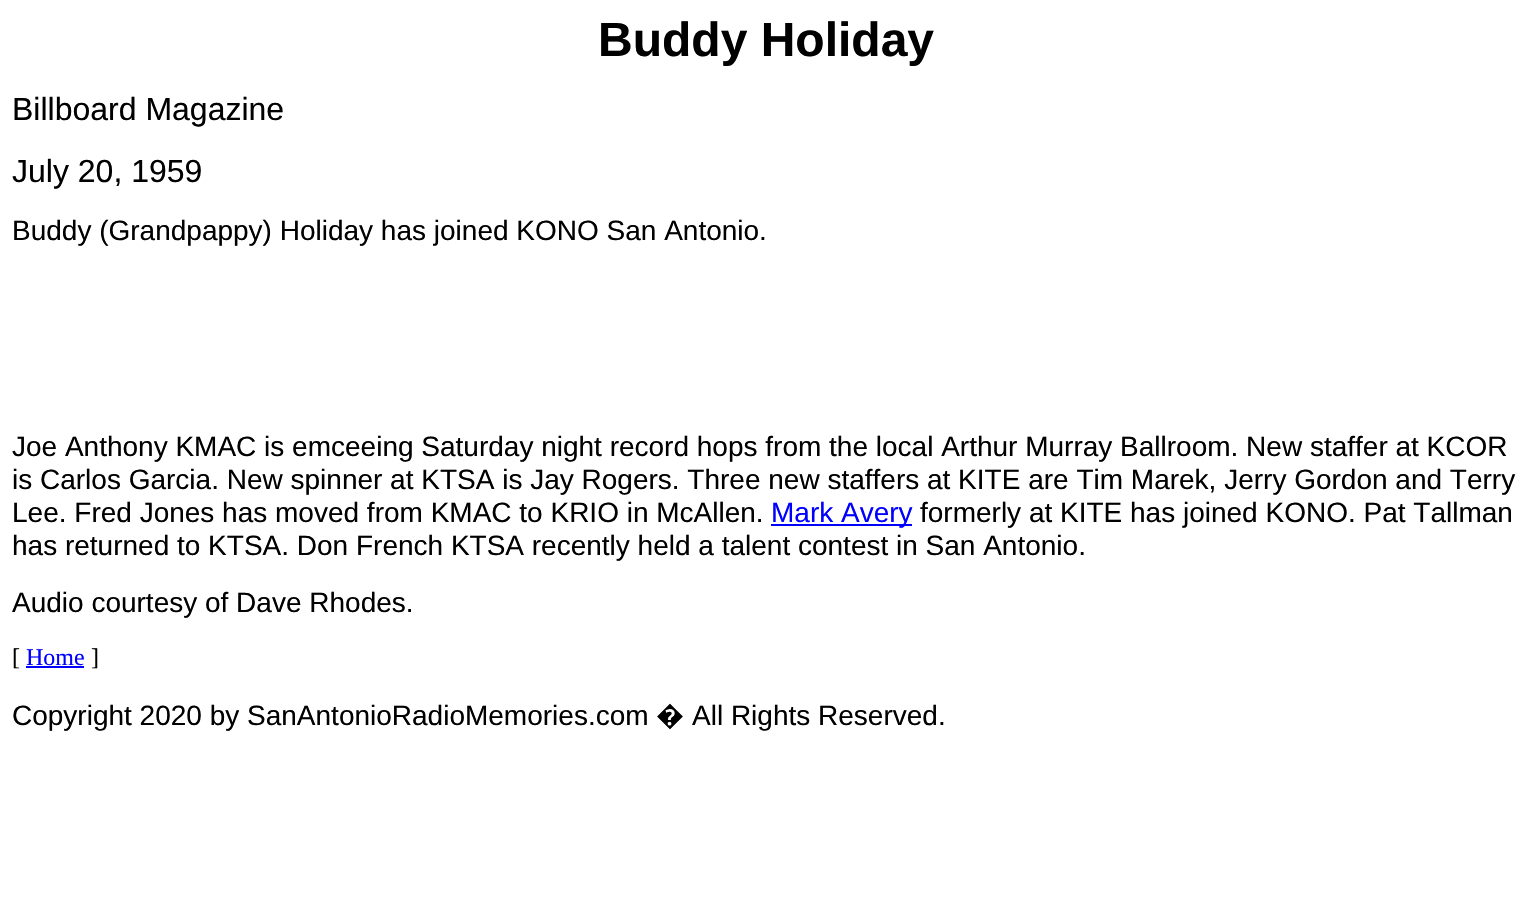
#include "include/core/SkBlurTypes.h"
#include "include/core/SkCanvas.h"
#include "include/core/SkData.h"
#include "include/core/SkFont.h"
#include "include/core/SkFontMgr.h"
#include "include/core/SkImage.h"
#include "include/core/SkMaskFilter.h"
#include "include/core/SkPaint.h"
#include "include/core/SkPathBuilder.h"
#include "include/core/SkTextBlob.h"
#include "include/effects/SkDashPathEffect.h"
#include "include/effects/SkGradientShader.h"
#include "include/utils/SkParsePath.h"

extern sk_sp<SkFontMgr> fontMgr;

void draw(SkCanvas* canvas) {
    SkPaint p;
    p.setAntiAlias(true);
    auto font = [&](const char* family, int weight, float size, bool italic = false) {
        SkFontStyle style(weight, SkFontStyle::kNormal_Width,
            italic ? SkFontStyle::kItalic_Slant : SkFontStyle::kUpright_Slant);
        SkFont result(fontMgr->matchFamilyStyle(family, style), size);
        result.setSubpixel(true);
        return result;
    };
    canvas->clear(0xFFFFFFFF);
    auto font1 = font("Liberation Sans", 700, 48);
    p.setColor(0xFF000000);
    canvas->drawString("Buddy Holiday", 598, 56, font1, p);
    auto font2 = font("Liberation Sans", 400, 32);
    canvas->drawString("Billboard Magazine", 12, 120, font2, p);
    canvas->drawString("July 20, 1959", 12, 182, font2, p);
    auto font3 = font("Liberation Sans", 400, 28);
    {
        const struct { const char* s; float x, y; } items[] = {
            {"Buddy (Grandpappy) Holiday has joined KONO San Antonio.", 12, 240},
            {"Joe Anthony KMAC is emceeing Saturday night record hops from the local Arthur Murray Ballroom. New staffer at KCOR", 12, 456},
            {"is Carlos Garcia. New spinner at KTSA is Jay Rogers. Three new staffers at KITE are Tim Marek, Jerry Gordon and Terry", 12, 489},
            {"Lee. Fred Jones has moved from KMAC to KRIO in McAllen.", 12, 522},
        };
        for (auto [s, x, y] : items) {
            canvas->drawString(s, x, y, font3, p);
        }
    }
    p.setColor(0xFF0000FF);
    canvas->drawRect(SkRect::MakeLTRB(771, 524, 912, 526), p);
    canvas->drawString("Mark Avery", 771, 522, font3, p);
    p.setColor(0xFF000000);
    {
        const struct { const char* s; float x, y; } items[] = {
            {"formerly at KITE has joined KONO. Pat Tallman", 920, 522},
            {"has returned to KTSA. Don French KTSA recently held a talent contest in San Antonio.", 12, 555},
            {"Audio courtesy of Dave Rhodes.", 12, 612},
        };
        for (auto [s, x, y] : items) {
            canvas->drawString(s, x, y, font3, p);
        }
    }
    auto font4 = font("Liberation Serif", 400, 24);
    canvas->drawString("[", 12, 665, font4, p);
    p.setColor(0xFF0000FF);
    canvas->drawString("Home", 26, 665, font4, p);
    canvas->drawRect(SkRect::MakeLTRB(26, 666, 84, 668), p);
    p.setColor(0xFF000000);
    canvas->drawString("]", 91, 665, font4, p);
    canvas->drawString("Copyright 2020 by SanAntonioRadioMemories.com", 12, 725, font3, p);
    auto font5 = font("Noto Sans", 400, 28);
    canvas->drawString("�", 656, 725, font5, p);
    canvas->drawString("All Rights Reserved.", 692, 725, font3, p);
}
